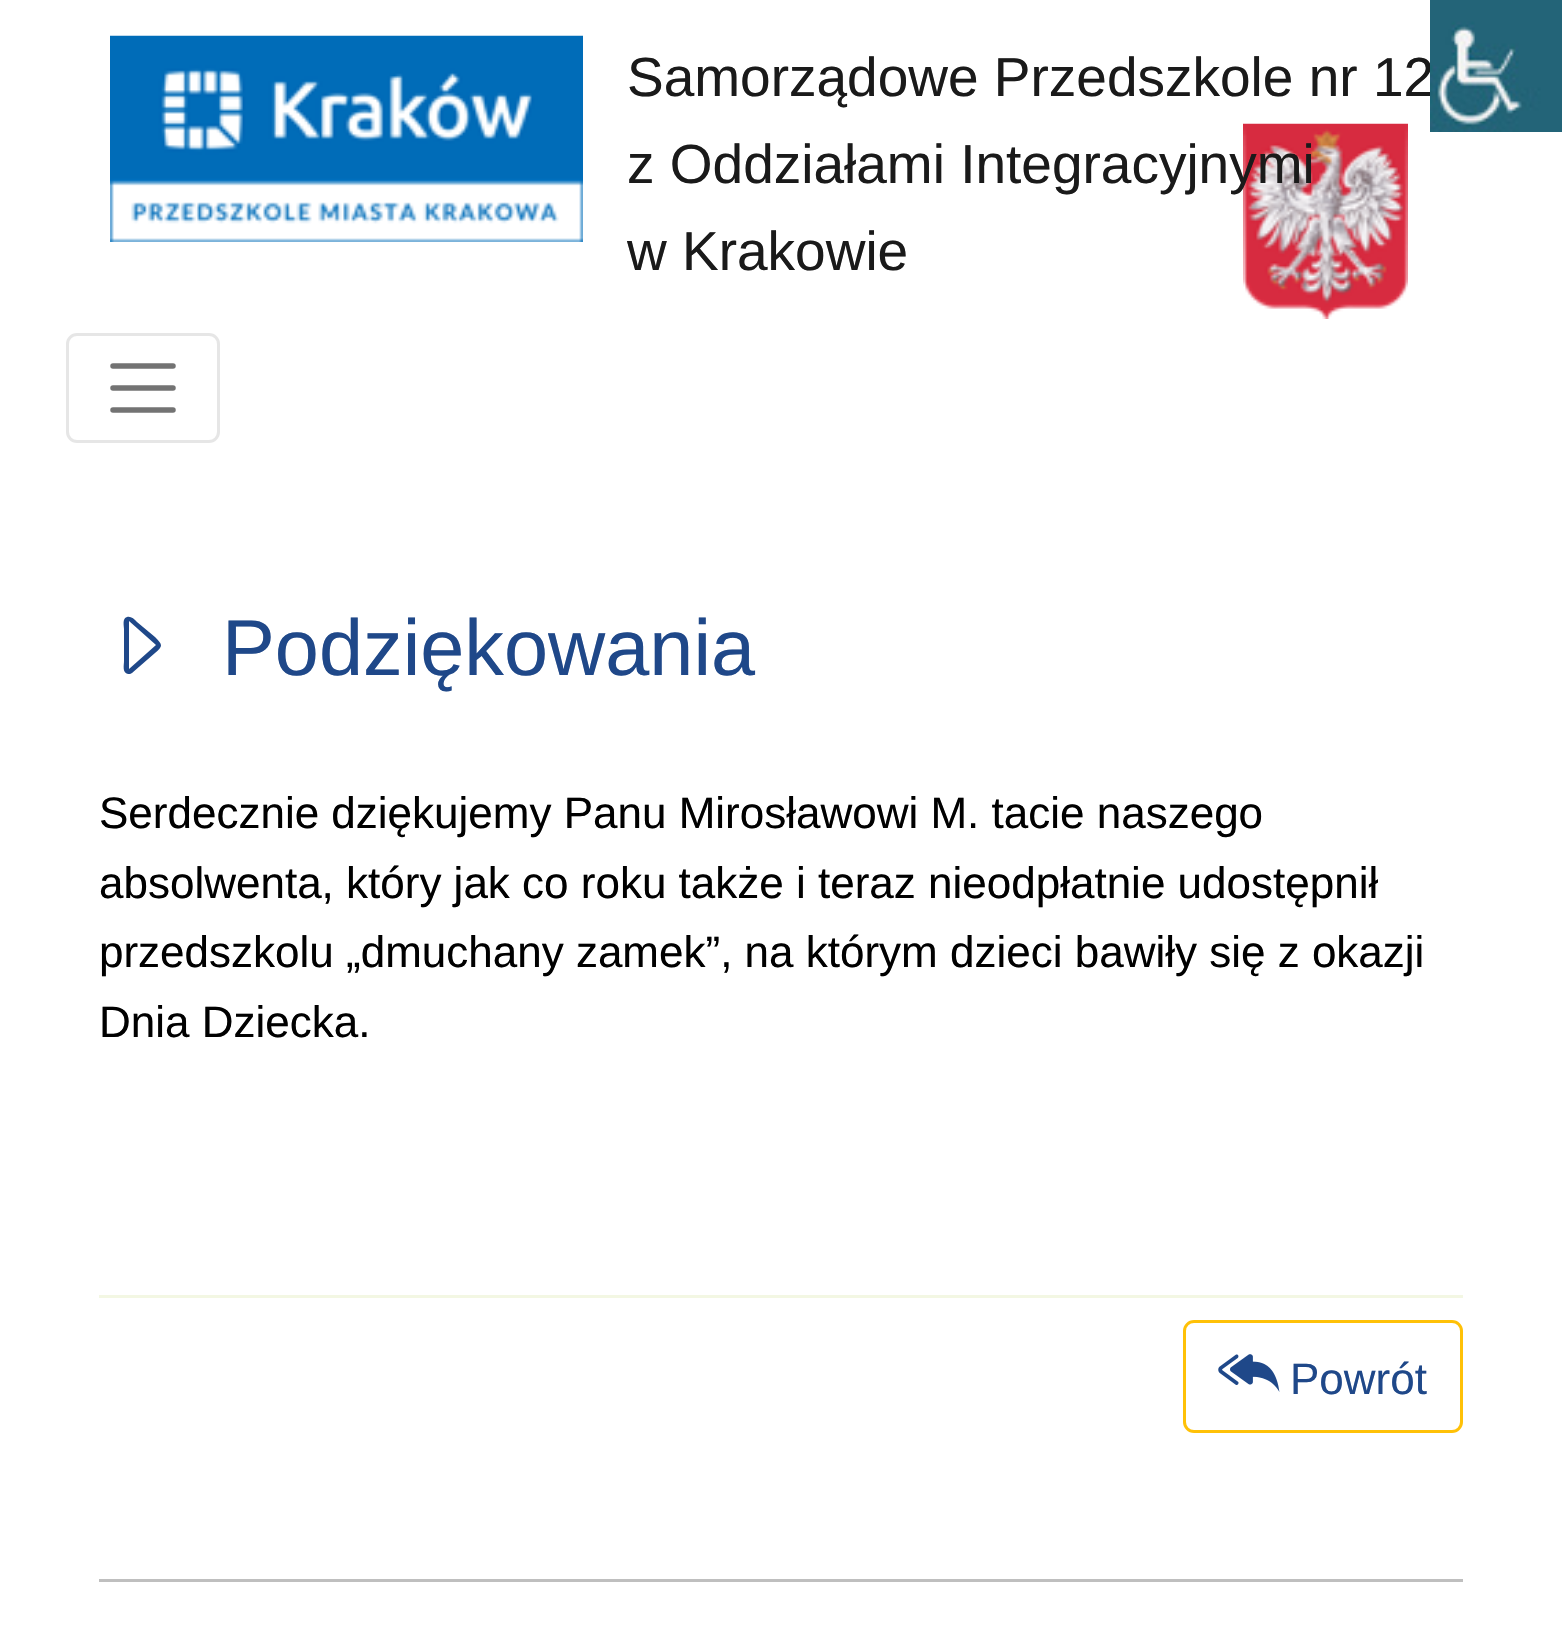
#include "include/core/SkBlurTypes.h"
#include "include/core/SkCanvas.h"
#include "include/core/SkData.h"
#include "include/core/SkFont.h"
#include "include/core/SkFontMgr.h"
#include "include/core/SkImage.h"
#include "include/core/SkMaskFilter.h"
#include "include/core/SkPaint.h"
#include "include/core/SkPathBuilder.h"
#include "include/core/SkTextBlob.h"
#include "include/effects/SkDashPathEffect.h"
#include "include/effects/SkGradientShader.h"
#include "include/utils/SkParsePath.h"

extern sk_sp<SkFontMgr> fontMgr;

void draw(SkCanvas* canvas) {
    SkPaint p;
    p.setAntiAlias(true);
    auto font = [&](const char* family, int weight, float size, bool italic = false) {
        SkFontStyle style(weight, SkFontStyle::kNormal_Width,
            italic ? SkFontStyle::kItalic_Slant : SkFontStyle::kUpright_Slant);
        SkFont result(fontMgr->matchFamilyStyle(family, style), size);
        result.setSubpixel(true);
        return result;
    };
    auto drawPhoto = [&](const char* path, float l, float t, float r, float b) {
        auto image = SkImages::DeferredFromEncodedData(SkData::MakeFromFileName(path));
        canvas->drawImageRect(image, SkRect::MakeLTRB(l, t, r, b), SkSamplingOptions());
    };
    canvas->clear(0xFFFFFFFF);
    drawPhoto("media/1.png", 110, 35, 583, 242);
    auto font1 = font("Liberation Sans", 400, 55);
    p.setColor(0xFF1A1A1A);
    canvas->drawString("Samorządowe Przedszkole nr 12", 627, 96, font1, p);
    drawPhoto("media/2.png", 1243, 123, 1408, 319);
    canvas->drawString("z Oddziałami Integracyjnymi", 627, 183, font1, p);
    canvas->drawString("w Krakowie", 627, 270, font1, p);
    p.setStyle(SkPaint::kStroke_Style);
    p.setStrokeWidth(3);
    p.setColor(0xFFE6E6E6);
    canvas->drawRoundRect(SkRect::MakeLTRB(67.5f, 334.5f, 218.5f, 441.5f), 9.5f, 9.5f, p);
    p.setStrokeWidth(5.5f);
    p.setStrokeCap(SkPaint::kRound_Cap);
    p.setColor(0xFF737373);
    canvas->drawPath(SkPathBuilder().moveTo(113, 366).lineTo(173, 366).moveTo(113, 388).lineTo(173, 388).moveTo(113, 410).lineTo(173, 410).detach(), p);
    drawPhoto("media/3.png", 1430, 0, 1562, 132);
    p.setStyle(SkPaint::kFill_Style);
    p.setColor(0xFF1F4889);
    canvas->drawPath(SkPathBuilder().moveTo(129, 669).lineTo(129, 621).lineTo(156, 645).close().moveTo(132, 673).lineTo(155, 653).cubicTo(163, 646, 163, 645, 155, 637).lineTo(137, 622).cubicTo(134, 619, 131, 616, 127, 617).cubicTo(122, 618, 124, 626, 124, 629).lineTo(124, 661).cubicTo(124, 665, 122, 673, 128, 674).cubicTo(129, 674, 131, 674, 132, 673).close().detach(), p);
    auto font2 = font("Liberation Sans", 400, 79.25f);
    canvas->drawString("Podziękowania", 222, 675, font2, p);
    auto font3 = font("Liberation Sans", 400, 44);
    p.setColor(0xFF000000);
    {
        const struct { const char* s; float x, y; } items[] = {
            {"Serdecznie dziękujemy Panu Mirosławowi M. tacie naszego", 99, 828},
            {"absolwenta, który jak co roku także i teraz nieodpłatnie udostępnił", 99, 898},
            {"przedszkolu „dmuchany zamek”, na którym dzieci bawiły się z okazji", 99, 967},
            {"Dnia Dziecka.", 99, 1037},
        };
        for (auto [s, x, y] : items) {
            canvas->drawString(s, x, y, font3, p);
        }
    }
    p.setColor(0xFFF3F7E3);
    canvas->drawRect(SkRect::MakeLTRB(99, 1295, 1463, 1298), p);
    p.setStyle(SkPaint::kStroke_Style);
    p.setStrokeWidth(3);
    p.setStrokeCap(SkPaint::kButt_Cap);
    p.setColor(0xFFFFC107);
    canvas->drawRoundRect(SkRect::MakeLTRB(1184.5f, 1321.5f, 1461.5f, 1431.5f), 9.5f, 9.5f, p);
    drawPhoto("media/4.png", 1218, 1354, 1280, 1392);
    p.setStyle(SkPaint::kFill_Style);
    p.setColor(0xFF1F4889);
    canvas->drawString("Powrót", 1290, 1394, font3, p);
    p.setColor(0xFFBFBFBF);
    canvas->drawRect(SkRect::MakeLTRB(99, 1579, 1463, 1582), p);
}
